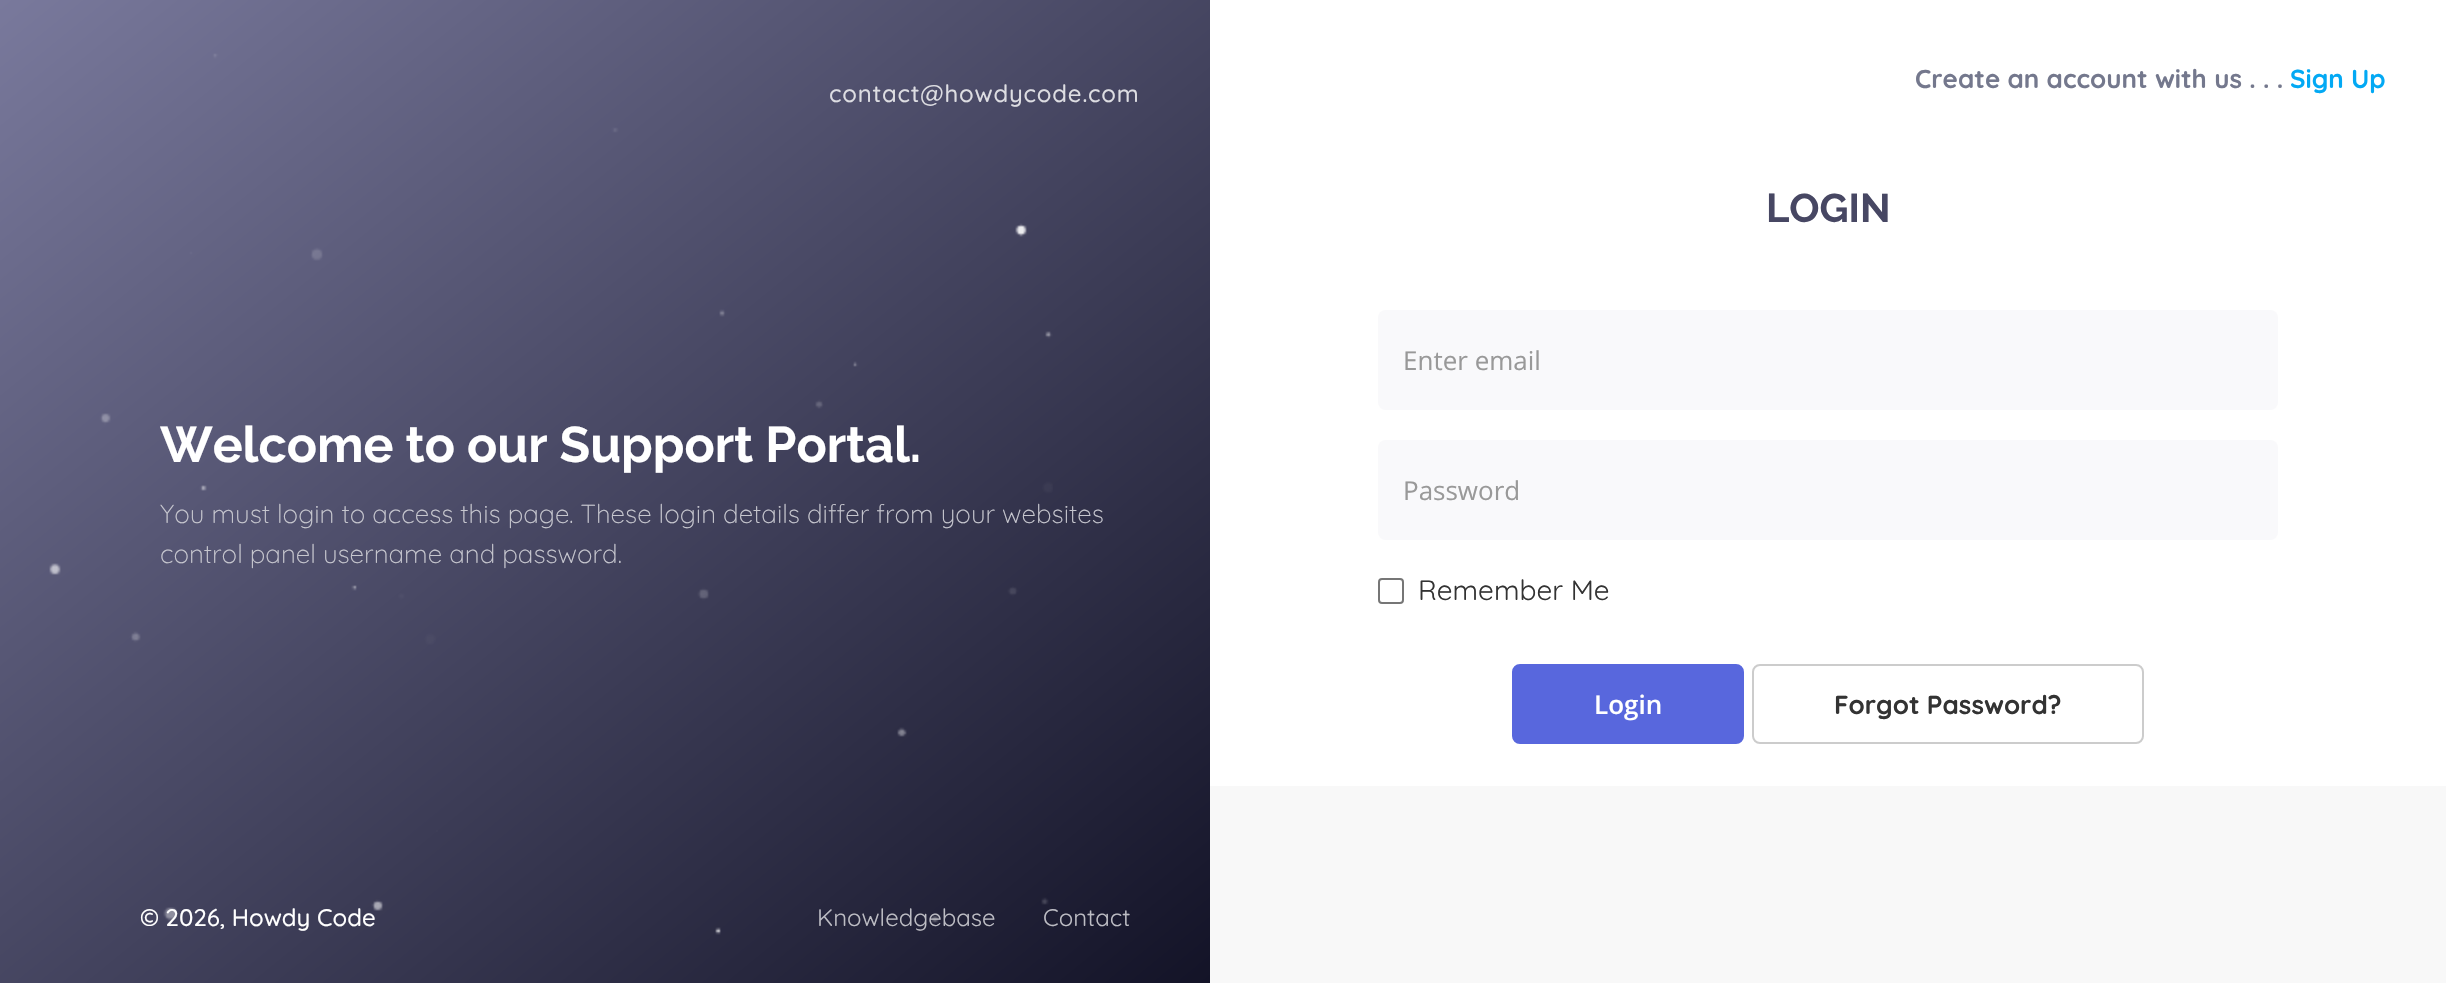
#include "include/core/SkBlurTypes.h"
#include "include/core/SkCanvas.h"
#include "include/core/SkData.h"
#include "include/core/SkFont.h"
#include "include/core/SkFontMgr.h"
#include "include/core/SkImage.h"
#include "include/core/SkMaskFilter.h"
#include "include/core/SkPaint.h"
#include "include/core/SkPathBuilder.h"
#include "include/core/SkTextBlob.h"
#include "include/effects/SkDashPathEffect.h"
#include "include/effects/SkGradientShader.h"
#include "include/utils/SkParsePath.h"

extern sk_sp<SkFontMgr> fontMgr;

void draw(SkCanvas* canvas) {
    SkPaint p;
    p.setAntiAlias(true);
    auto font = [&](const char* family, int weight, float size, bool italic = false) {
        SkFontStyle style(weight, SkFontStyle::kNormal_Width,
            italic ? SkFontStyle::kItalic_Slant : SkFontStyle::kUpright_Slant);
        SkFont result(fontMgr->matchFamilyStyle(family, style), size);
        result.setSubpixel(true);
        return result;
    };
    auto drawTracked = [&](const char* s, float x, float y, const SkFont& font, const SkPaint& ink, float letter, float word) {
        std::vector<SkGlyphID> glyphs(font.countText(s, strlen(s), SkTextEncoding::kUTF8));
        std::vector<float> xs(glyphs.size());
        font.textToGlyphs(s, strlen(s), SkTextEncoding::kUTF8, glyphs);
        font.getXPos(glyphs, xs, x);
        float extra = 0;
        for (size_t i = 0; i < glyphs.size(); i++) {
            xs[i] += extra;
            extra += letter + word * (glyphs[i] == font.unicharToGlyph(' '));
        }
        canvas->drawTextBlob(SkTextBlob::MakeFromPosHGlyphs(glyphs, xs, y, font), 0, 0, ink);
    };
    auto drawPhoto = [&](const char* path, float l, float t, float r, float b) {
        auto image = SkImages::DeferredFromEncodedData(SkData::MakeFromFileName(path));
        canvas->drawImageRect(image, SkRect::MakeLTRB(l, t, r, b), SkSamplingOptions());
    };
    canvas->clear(0xFFF8F8F8);
    {
        const SkColor colors[] = {0xFF79799C, 0xFF131327};
        const float stops[] = {0, 1};
        const SkPoint ends[] = {{123, -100}, {1087, 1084}};
        p.setShader(SkGradientShader::MakeLinear(ends, colors, stops, 2, SkTileMode::kClamp));
        p.setAlpha(255);
    }
    canvas->drawRect(SkRect::MakeLTRB(0, 0, 1210, 983), p);
    drawPhoto("media/1.png", 49, 53, 1053, 935);
    auto font1 = font("Quicksand", 500, 24);
    p.setShader(nullptr);
    p.setColor(0xFFDDDDE2);
    drawTracked("contact@howdycode.com", 829, 102, font1, p, 0.8f, 0);
    auto font2 = font("Raleway", 700, 50);
    p.setColor(0xFFFFFFFF);
    canvas->drawString("Welcome to our Support Portal.", 160, 462, font2, p);
    auto font3 = font("Quicksand", 300, 26);
    p.setColor(0xFFC7C7CF);
    canvas->drawString("You must login to access this page. These login details differ from your websites", 160, 523, font3, p);
    canvas->drawString("control panel username and password.", 160, 563, font3, p);
    p.setColor(0xFFFFFFFF);
    canvas->drawString("© 2026, Howdy Code", 140, 926, font1, p);
    auto font4 = font("Quicksand", 400, 24);
    p.setColor(0xFFBDBDC4);
    canvas->drawString("Knowledgebase", 817, 926, font4, p);
    canvas->drawString("Contact", 1043, 926, font4, p);
    p.setColor(0xFFFFFFFF);
    canvas->drawRect(SkRect::MakeLTRB(1210, 0, 2446, 786), p);
    auto font5 = font("Quicksand", 700, 26);
    p.setColor(0xFF74788D);
    canvas->drawString("Create an account with us . . .", 1915, 88, font5, p);
    p.setColor(0xFF03A9F4);
    canvas->drawString("Sign Up", 2290, 88, font5, p);
    auto font6 = font("Raleway", 700, 40);
    p.setColor(0xFF474763);
    canvas->drawString("LOGIN", 1766, 222, font6, p);
    p.setColor(0xFFF9F9FB);
    canvas->drawRoundRect(SkRect::MakeLTRB(1378, 310, 2278, 410), 8, 8, p);
    auto font7 = font("Open Sans", 400, 26);
    p.setColor(0xFF999999);
    canvas->drawString("Enter email", 1403, 370, font7, p);
    p.setColor(0xFFF9F9FB);
    canvas->drawRoundRect(SkRect::MakeLTRB(1378, 440, 2278, 540), 8, 8, p);
    p.setColor(0xFF999999);
    canvas->drawString("Password", 1403, 500, font7, p);
    p.setStyle(SkPaint::kStroke_Style);
    p.setStrokeWidth(2);
    p.setColor(0xFF767676);
    canvas->drawRoundRect(SkRect::MakeLTRB(1379, 579, 1403, 603), 3, 3, p);
    auto font8 = font("Quicksand", 400, 28);
    p.setStyle(SkPaint::kFill_Style);
    p.setColor(0xFF333333);
    canvas->drawString("Remember Me", 1418, 600, font8, p);
    p.setColor(0xFF5867DD);
    canvas->drawRoundRect(SkRect::MakeLTRB(1513, 665, 1743, 743), 7, 7, p);
    p.setStyle(SkPaint::kStroke_Style);
    canvas->drawRoundRect(SkRect::MakeLTRB(1513, 665, 1743, 743), 7, 7, p);
    auto font9 = font("Open Sans", 600, 26);
    p.setStyle(SkPaint::kFill_Style);
    p.setColor(0xFFFFFFFF);
    canvas->drawString("Login", 1594, 714, font9, p);
    p.setStyle(SkPaint::kStroke_Style);
    p.setColor(0xFFCCCCCC);
    canvas->drawRoundRect(SkRect::MakeLTRB(1753, 665, 2143, 743), 7, 7, p);
    p.setStyle(SkPaint::kFill_Style);
    p.setColor(0xFF333333);
    canvas->drawString("Forgot Password?", 1834, 714, font5, p);
}
